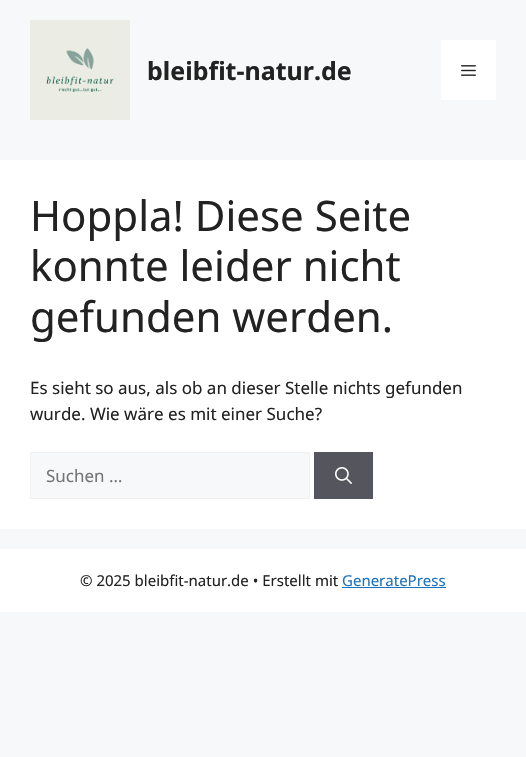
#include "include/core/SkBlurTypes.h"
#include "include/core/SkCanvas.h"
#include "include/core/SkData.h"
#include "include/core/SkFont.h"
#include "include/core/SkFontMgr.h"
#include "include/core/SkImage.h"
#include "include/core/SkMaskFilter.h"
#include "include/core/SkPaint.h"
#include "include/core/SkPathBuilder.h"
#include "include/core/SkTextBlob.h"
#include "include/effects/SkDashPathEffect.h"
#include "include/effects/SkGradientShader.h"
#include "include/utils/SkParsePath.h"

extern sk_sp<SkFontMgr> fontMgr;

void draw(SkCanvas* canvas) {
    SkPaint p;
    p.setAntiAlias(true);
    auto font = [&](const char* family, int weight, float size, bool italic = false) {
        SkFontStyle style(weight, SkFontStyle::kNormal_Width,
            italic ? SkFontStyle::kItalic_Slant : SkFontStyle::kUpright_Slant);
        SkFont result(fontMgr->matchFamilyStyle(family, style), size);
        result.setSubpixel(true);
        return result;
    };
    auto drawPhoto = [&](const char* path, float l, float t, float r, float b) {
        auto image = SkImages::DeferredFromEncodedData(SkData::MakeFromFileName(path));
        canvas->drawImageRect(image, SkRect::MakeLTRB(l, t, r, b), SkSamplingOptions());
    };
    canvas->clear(0xFFF7F8F9);
    drawPhoto("media/1.png", 30, 20, 130, 120);
    auto font1 = font("Noto Sans", 700, 25);
    p.setColor(0xFF222222);
    canvas->drawString("bleibfit-natur.de", 147, 80, font1, p);
    p.setColor(0xFFFFFFFF);
    canvas->drawRect(SkRect::MakeLTRB(441, 40, 496, 100), p);
    drawPhoto("media/2.png", 461, 65, 476, 76);
    canvas->drawRect(SkRect::MakeLTRB(0, 160, 526, 529), p);
    auto font2 = font("Noto Sans", 400, 42);
    p.setColor(0xFF222222);
    {
        const struct { const char* s; float x, y; } items[] = {
            {"Hoppla! Diese Seite", 30, 231},
            {"konnte leider nicht", 30, 281},
            {"gefunden werden.", 30, 332},
        };
        for (auto [s, x, y] : items) {
            canvas->drawString(s, x, y, font2, p);
        }
    }
    auto font3 = font("Noto Sans", 400, 17);
    canvas->drawString("Es sieht so aus, als ob an dieser Stelle nichts gefunden", 30, 394, font3, p);
    canvas->drawString("wurde. Wie wäre es mit einer Suche?", 30, 420, font3, p);
    p.setColor(0xFFF7F8F9);
    canvas->drawRect(SkRect::MakeLTRB(30.5f, 452.5f, 309.5f, 498.5f), p);
    p.setStyle(SkPaint::kStroke_Style);
    p.setStrokeWidth(1);
    p.setColor(0xFFF0F0F0);
    canvas->drawRect(SkRect::MakeLTRB(30.5f, 452.5f, 309.5f, 498.5f), p);
    p.setStyle(SkPaint::kFill_Style);
    p.setColor(0xFF757575);
    canvas->drawString("Suchen …", 46, 482, font3, p);
    p.setColor(0xFF55555E);
    canvas->drawRect(SkRect::MakeLTRB(314, 452, 373, 499), p);
    drawPhoto("media/3.png", 335, 467, 352, 484);
    p.setColor(0xFFFFFFFF);
    canvas->drawRect(SkRect::MakeLTRB(0, 549, 526, 612), p);
    auto font4 = font("Noto Sans", 400, 15);
    p.setColor(0xFF222222);
    canvas->drawString("© 2025 bleibfit-natur.de • Erstellt mit", 80, 586, font4, p);
    p.setColor(0xFF1E73BE);
    canvas->drawString("GeneratePress", 342, 586, font4, p);
    canvas->drawRect(SkRect::MakeLTRB(342, 587, 446, 588), p);
}
